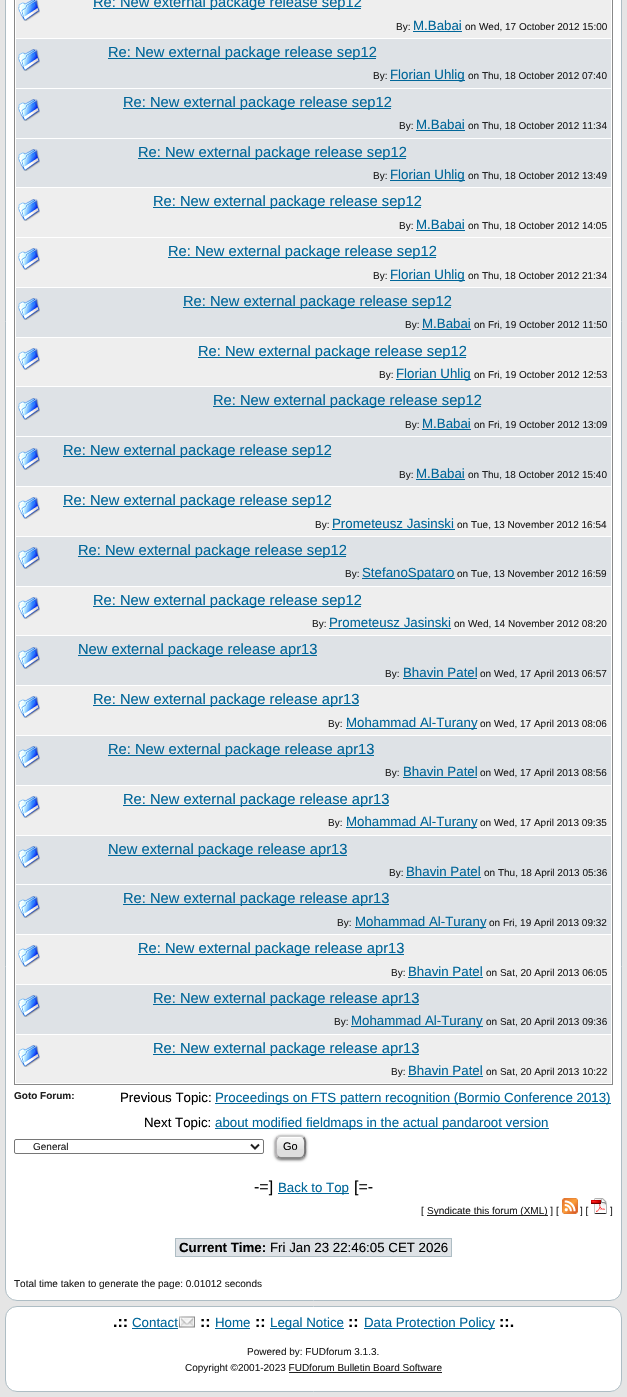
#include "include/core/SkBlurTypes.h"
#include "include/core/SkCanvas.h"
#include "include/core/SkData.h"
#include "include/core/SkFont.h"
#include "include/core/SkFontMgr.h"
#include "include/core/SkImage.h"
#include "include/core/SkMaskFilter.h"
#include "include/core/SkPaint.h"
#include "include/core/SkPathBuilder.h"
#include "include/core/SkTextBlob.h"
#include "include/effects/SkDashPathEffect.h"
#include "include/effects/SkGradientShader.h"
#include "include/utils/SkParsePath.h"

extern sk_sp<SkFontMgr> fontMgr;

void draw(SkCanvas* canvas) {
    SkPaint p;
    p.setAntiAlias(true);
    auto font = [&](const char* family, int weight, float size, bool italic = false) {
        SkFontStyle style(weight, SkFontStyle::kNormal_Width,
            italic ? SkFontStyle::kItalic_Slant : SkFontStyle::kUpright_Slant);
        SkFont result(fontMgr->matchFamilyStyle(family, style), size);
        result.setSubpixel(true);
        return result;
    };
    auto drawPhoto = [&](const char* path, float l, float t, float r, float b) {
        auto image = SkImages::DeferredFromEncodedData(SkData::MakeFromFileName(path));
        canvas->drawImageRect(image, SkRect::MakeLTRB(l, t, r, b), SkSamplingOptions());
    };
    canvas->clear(0xFFE5E5E5);
    p.setColor(0xFFFFFFFF);
    canvas->drawRoundRect(SkRect::MakeLTRB(5.5f, -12.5f, 621.5f, 1300.5f), 11.5f, 11.5f, p);
    p.setStyle(SkPaint::kStroke_Style);
    p.setStrokeWidth(1);
    p.setColor(0xFFAEBDC4);
    canvas->drawRoundRect(SkRect::MakeLTRB(5.5f, -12.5f, 621.5f, 1300.5f), 11.5f, 11.5f, p);
    p.setColor(0xFF888888);
    canvas->drawRect(SkRect::MakeLTRB(14.5f, -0.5f, 612.5f, 1084.5f), p);
    p.setStyle(SkPaint::kFill_Style);
    p.setColor(0xFFEEEEEE);
    canvas->drawRect(SkRect::MakeLTRB(16, 0, 611, 38), p);
    drawPhoto("media/1.png", 18, 0, 40, 21);
    p.setColor(0xFF006699);
    canvas->drawRect(SkRect::MakeLTRB(93, 8, 361, 9), p);
    auto font1 = font("Liberation Sans", 400, 14.7f);
    canvas->drawString("Re: New external package release sep12", 93, 7, font1, p);
    auto font2 = font("Liberation Sans", 400, 10);
    p.setColor(0xFF202020);
    canvas->drawString("By:", 396, 30, font2, p);
    auto font3 = font("Liberation Sans", 400, 13.3f);
    p.setColor(0xFF006699);
    canvas->drawString("M.Babai", 413, 30, font3, p);
    canvas->drawRect(SkRect::MakeLTRB(413, 31, 462, 32), p);
    p.setColor(0xFF202020);
    canvas->drawString("on Wed, 17 October 2012 15:00", 465, 30, font2, p);
    p.setColor(0xFFDEE2E6);
    canvas->drawRect(SkRect::MakeLTRB(16, 39, 611, 88), p);
    drawPhoto("media/2.png", 18, 49, 40, 71);
    p.setColor(0xFF006699);
    canvas->drawRect(SkRect::MakeLTRB(108, 58, 376, 59), p);
    canvas->drawString("Re: New external package release sep12", 108, 57, font1, p);
    p.setColor(0xFF202020);
    canvas->drawString("By:", 373, 79, font2, p);
    p.setColor(0xFF006699);
    canvas->drawRect(SkRect::MakeLTRB(390, 80, 465, 81), p);
    canvas->drawString("Florian Uhlig", 390, 79, font3, p);
    p.setColor(0xFF202020);
    canvas->drawString("on Thu, 18 October 2012 07:40", 468, 79, font2, p);
    p.setColor(0xFFDEE2E6);
    canvas->drawRect(SkRect::MakeLTRB(16, 89, 611, 138), p);
    drawPhoto("media/2.png", 18, 99, 40, 121);
    p.setColor(0xFF006699);
    canvas->drawRect(SkRect::MakeLTRB(123, 108, 391, 109), p);
    canvas->drawString("Re: New external package release sep12", 123, 107, font1, p);
    p.setColor(0xFF202020);
    canvas->drawString("By:", 399, 129, font2, p);
    p.setColor(0xFF006699);
    canvas->drawString("M.Babai", 416, 129, font3, p);
    canvas->drawRect(SkRect::MakeLTRB(416, 130, 465, 131), p);
    p.setColor(0xFF202020);
    canvas->drawString("on Thu, 18 October 2012 11:34", 468, 129, font2, p);
    p.setColor(0xFFDEE2E6);
    canvas->drawRect(SkRect::MakeLTRB(16, 139, 611, 187), p);
    drawPhoto("media/2.png", 18, 149, 40, 171);
    p.setColor(0xFF006699);
    canvas->drawRect(SkRect::MakeLTRB(138, 158, 406, 159), p);
    canvas->drawString("Re: New external package release sep12", 138, 157, font1, p);
    p.setColor(0xFF202020);
    canvas->drawString("By:", 373, 179, font2, p);
    p.setColor(0xFF006699);
    canvas->drawRect(SkRect::MakeLTRB(390, 180, 465, 181), p);
    canvas->drawString("Florian Uhlig", 390, 179, font3, p);
    p.setColor(0xFF202020);
    canvas->drawString("on Thu, 18 October 2012 13:49", 468, 179, font2, p);
    p.setColor(0xFFEEEEEE);
    canvas->drawRect(SkRect::MakeLTRB(16, 188, 611, 237), p);
    drawPhoto("media/3.png", 18, 199, 40, 221);
    p.setColor(0xFF006699);
    canvas->drawRect(SkRect::MakeLTRB(153, 207, 421, 208), p);
    canvas->drawString("Re: New external package release sep12", 153, 206, font1, p);
    p.setColor(0xFF202020);
    canvas->drawString("By:", 399, 229, font2, p);
    p.setColor(0xFF006699);
    canvas->drawString("M.Babai", 416, 229, font3, p);
    canvas->drawRect(SkRect::MakeLTRB(416, 230, 465, 231), p);
    p.setColor(0xFF202020);
    canvas->drawString("on Thu, 18 October 2012 14:05", 468, 229, font2, p);
    p.setColor(0xFFEEEEEE);
    canvas->drawRect(SkRect::MakeLTRB(16, 238, 611, 287), p);
    drawPhoto("media/3.png", 18, 248, 40, 270);
    p.setColor(0xFF006699);
    canvas->drawRect(SkRect::MakeLTRB(168, 257, 436, 258), p);
    canvas->drawString("Re: New external package release sep12", 168, 256, font1, p);
    p.setColor(0xFF202020);
    canvas->drawString("By:", 373, 279, font2, p);
    p.setColor(0xFF006699);
    canvas->drawRect(SkRect::MakeLTRB(390, 280, 465, 281), p);
    canvas->drawString("Florian Uhlig", 390, 279, font3, p);
    p.setColor(0xFF202020);
    canvas->drawString("on Thu, 18 October 2012 21:34", 468, 279, font2, p);
    p.setColor(0xFFDEE2E6);
    canvas->drawRect(SkRect::MakeLTRB(16, 288, 611, 337), p);
    drawPhoto("media/2.png", 18, 298, 40, 320);
    p.setColor(0xFF006699);
    canvas->drawRect(SkRect::MakeLTRB(183, 307, 451, 308), p);
    canvas->drawString("Re: New external package release sep12", 183, 306, font1, p);
    p.setColor(0xFF202020);
    canvas->drawString("By:", 405, 328, font2, p);
    p.setColor(0xFF006699);
    canvas->drawString("M.Babai", 422, 328, font3, p);
    canvas->drawRect(SkRect::MakeLTRB(422, 329, 471, 330), p);
    p.setColor(0xFF202020);
    canvas->drawString("on Fri, 19 October 2012 11:50", 474, 328, font2, p);
    p.setColor(0xFFEEEEEE);
    canvas->drawRect(SkRect::MakeLTRB(16, 338, 611, 386), p);
    drawPhoto("media/3.png", 18, 348, 40, 370);
    p.setColor(0xFF006699);
    canvas->drawRect(SkRect::MakeLTRB(198, 357, 466, 358), p);
    canvas->drawString("Re: New external package release sep12", 198, 356, font1, p);
    p.setColor(0xFF202020);
    canvas->drawString("By:", 379, 378, font2, p);
    p.setColor(0xFF006699);
    canvas->drawRect(SkRect::MakeLTRB(396, 379, 471, 380), p);
    canvas->drawString("Florian Uhlig", 396, 378, font3, p);
    p.setColor(0xFF202020);
    canvas->drawString("on Fri, 19 October 2012 12:53", 474, 378, font2, p);
    p.setColor(0xFFDEE2E6);
    canvas->drawRect(SkRect::MakeLTRB(16, 387, 611, 436), p);
    drawPhoto("media/2.png", 18, 398, 40, 420);
    p.setColor(0xFF006699);
    canvas->drawRect(SkRect::MakeLTRB(213, 406, 481, 407), p);
    canvas->drawString("Re: New external package release sep12", 213, 405, font1, p);
    p.setColor(0xFF202020);
    canvas->drawString("By:", 405, 428, font2, p);
    p.setColor(0xFF006699);
    canvas->drawString("M.Babai", 422, 428, font3, p);
    canvas->drawRect(SkRect::MakeLTRB(422, 429, 471, 430), p);
    p.setColor(0xFF202020);
    canvas->drawString("on Fri, 19 October 2012 13:09", 474, 428, font2, p);
    p.setColor(0xFFDEE2E6);
    canvas->drawRect(SkRect::MakeLTRB(16, 437, 611, 486), p);
    drawPhoto("media/2.png", 18, 448, 40, 470);
    p.setColor(0xFF006699);
    canvas->drawRect(SkRect::MakeLTRB(63, 456, 331, 457), p);
    canvas->drawString("Re: New external package release sep12", 63, 455, font1, p);
    p.setColor(0xFF202020);
    canvas->drawString("By:", 399, 478, font2, p);
    p.setColor(0xFF006699);
    canvas->drawString("M.Babai", 416, 478, font3, p);
    canvas->drawRect(SkRect::MakeLTRB(416, 479, 465, 480), p);
    p.setColor(0xFF202020);
    canvas->drawString("on Thu, 18 October 2012 15:40", 468, 478, font2, p);
    p.setColor(0xFFEEEEEE);
    canvas->drawRect(SkRect::MakeLTRB(16, 487, 611, 536), p);
    drawPhoto("media/3.png", 18, 497, 40, 519);
    p.setColor(0xFF006699);
    canvas->drawRect(SkRect::MakeLTRB(63, 506, 331, 507), p);
    canvas->drawString("Re: New external package release sep12", 63, 505, font1, p);
    p.setColor(0xFF202020);
    canvas->drawString("By:", 315, 528, font2, p);
    p.setColor(0xFF006699);
    canvas->drawString("Prometeusz Jasinski", 332, 528, font3, p);
    canvas->drawRect(SkRect::MakeLTRB(332, 529, 455, 530), p);
    p.setColor(0xFF202020);
    canvas->drawString("on Tue, 13 November 2012 16:54", 457, 528, font2, p);
    p.setColor(0xFFDEE2E6);
    canvas->drawRect(SkRect::MakeLTRB(16, 537, 611, 586), p);
    drawPhoto("media/2.png", 18, 547, 40, 569);
    p.setColor(0xFF006699);
    canvas->drawRect(SkRect::MakeLTRB(78, 556, 346, 557), p);
    canvas->drawString("Re: New external package release sep12", 78, 555, font1, p);
    p.setColor(0xFF202020);
    canvas->drawString("By:", 345, 577, font2, p);
    p.setColor(0xFF006699);
    canvas->drawRect(SkRect::MakeLTRB(362, 578, 455, 579), p);
    canvas->drawString("StefanoSpataro", 362, 577, font3, p);
    p.setColor(0xFF202020);
    canvas->drawString("on Tue, 13 November 2012 16:59", 457, 577, font2, p);
    p.setColor(0xFFEEEEEE);
    canvas->drawRect(SkRect::MakeLTRB(16, 587, 611, 635), p);
    drawPhoto("media/3.png", 18, 597, 40, 619);
    p.setColor(0xFF006699);
    canvas->drawRect(SkRect::MakeLTRB(93, 606, 361, 607), p);
    canvas->drawString("Re: New external package release sep12", 93, 605, font1, p);
    p.setColor(0xFF202020);
    canvas->drawString("By:", 312, 627, font2, p);
    p.setColor(0xFF006699);
    canvas->drawString("Prometeusz Jasinski", 329, 627, font3, p);
    canvas->drawRect(SkRect::MakeLTRB(329, 628, 451, 629), p);
    p.setColor(0xFF202020);
    canvas->drawString("on Wed, 14 November 2012 08:20", 454, 627, font2, p);
    p.setColor(0xFFDEE2E6);
    canvas->drawRect(SkRect::MakeLTRB(16, 636, 611, 685), p);
    drawPhoto("media/2.png", 18, 647, 40, 669);
    p.setColor(0xFF006699);
    canvas->drawRect(SkRect::MakeLTRB(78, 655, 317, 656), p);
    canvas->drawString("New external package release apr13", 78, 654, font1, p);
    p.setColor(0xFF202020);
    canvas->drawString("By:", 385, 677, font2, p);
    p.setColor(0xFF006699);
    canvas->drawString("Bhavin Patel", 403, 677, font3, p);
    canvas->drawRect(SkRect::MakeLTRB(403, 678, 477, 679), p);
    p.setColor(0xFF202020);
    canvas->drawString("on Wed, 17 April 2013 06:57", 480, 677, font2, p);
    p.setColor(0xFFEEEEEE);
    canvas->drawRect(SkRect::MakeLTRB(16, 686, 611, 735), p);
    drawPhoto("media/3.png", 18, 696, 40, 718);
    p.setColor(0xFF006699);
    canvas->drawRect(SkRect::MakeLTRB(93, 705, 359, 706), p);
    canvas->drawString("Re: New external package release apr13", 93, 704, font1, p);
    p.setColor(0xFF202020);
    canvas->drawString("By:", 328, 727, font2, p);
    p.setColor(0xFF006699);
    canvas->drawRect(SkRect::MakeLTRB(346, 728, 477, 729), p);
    canvas->drawString("Mohammad Al-Turany", 346, 727, font3, p);
    p.setColor(0xFF202020);
    canvas->drawString("on Wed, 17 April 2013 08:06", 480, 727, font2, p);
    p.setColor(0xFFDEE2E6);
    canvas->drawRect(SkRect::MakeLTRB(16, 736, 611, 785), p);
    drawPhoto("media/2.png", 18, 746, 40, 768);
    p.setColor(0xFF006699);
    canvas->drawRect(SkRect::MakeLTRB(108, 755, 374, 756), p);
    canvas->drawString("Re: New external package release apr13", 108, 754, font1, p);
    p.setColor(0xFF202020);
    canvas->drawString("By:", 385, 776, font2, p);
    p.setColor(0xFF006699);
    canvas->drawString("Bhavin Patel", 403, 776, font3, p);
    canvas->drawRect(SkRect::MakeLTRB(403, 777, 477, 778), p);
    p.setColor(0xFF202020);
    canvas->drawString("on Wed, 17 April 2013 08:56", 480, 776, font2, p);
    p.setColor(0xFFEEEEEE);
    canvas->drawRect(SkRect::MakeLTRB(16, 786, 611, 835), p);
    drawPhoto("media/3.png", 18, 796, 40, 818);
    p.setColor(0xFF006699);
    canvas->drawRect(SkRect::MakeLTRB(123, 805, 389, 806), p);
    canvas->drawString("Re: New external package release apr13", 123, 804, font1, p);
    p.setColor(0xFF202020);
    canvas->drawString("By:", 328, 826, font2, p);
    p.setColor(0xFF006699);
    canvas->drawRect(SkRect::MakeLTRB(346, 827, 477, 828), p);
    canvas->drawString("Mohammad Al-Turany", 346, 826, font3, p);
    p.setColor(0xFF202020);
    canvas->drawString("on Wed, 17 April 2013 09:35", 480, 826, font2, p);
    p.setColor(0xFFDEE2E6);
    canvas->drawRect(SkRect::MakeLTRB(16, 836, 611, 884), p);
    drawPhoto("media/2.png", 18, 846, 40, 868);
    p.setColor(0xFF006699);
    canvas->drawRect(SkRect::MakeLTRB(108, 855, 347, 856), p);
    canvas->drawString("New external package release apr13", 108, 854, font1, p);
    p.setColor(0xFF202020);
    canvas->drawString("By:", 389, 876, font2, p);
    p.setColor(0xFF006699);
    canvas->drawString("Bhavin Patel", 406, 876, font3, p);
    canvas->drawRect(SkRect::MakeLTRB(406, 877, 481, 878), p);
    p.setColor(0xFF202020);
    canvas->drawString("on Thu, 18 April 2013 05:36", 484, 876, font2, p);
    p.setColor(0xFFDEE2E6);
    canvas->drawRect(SkRect::MakeLTRB(16, 885, 611, 934), p);
    drawPhoto("media/2.png", 18, 896, 40, 918);
    p.setColor(0xFF006699);
    canvas->drawRect(SkRect::MakeLTRB(123, 904, 389, 905), p);
    canvas->drawString("Re: New external package release apr13", 123, 903, font1, p);
    p.setColor(0xFF202020);
    canvas->drawString("By:", 337, 926, font2, p);
    p.setColor(0xFF006699);
    canvas->drawRect(SkRect::MakeLTRB(355, 927, 486, 928), p);
    canvas->drawString("Mohammad Al-Turany", 355, 926, font3, p);
    p.setColor(0xFF202020);
    canvas->drawString("on Fri, 19 April 2013 09:32", 489, 926, font2, p);
    p.setColor(0xFFEEEEEE);
    canvas->drawRect(SkRect::MakeLTRB(16, 935, 611, 984), p);
    drawPhoto("media/3.png", 18, 945, 40, 967);
    p.setColor(0xFF006699);
    canvas->drawRect(SkRect::MakeLTRB(138, 954, 404, 955), p);
    canvas->drawString("Re: New external package release apr13", 138, 953, font1, p);
    p.setColor(0xFF202020);
    canvas->drawString("By:", 391, 976, font2, p);
    p.setColor(0xFF006699);
    canvas->drawString("Bhavin Patel", 408, 976, font3, p);
    canvas->drawRect(SkRect::MakeLTRB(408, 977, 483, 978), p);
    p.setColor(0xFF202020);
    canvas->drawString("on Sat, 20 April 2013 06:05", 486, 976, font2, p);
    p.setColor(0xFFDEE2E6);
    canvas->drawRect(SkRect::MakeLTRB(16, 985, 611, 1034), p);
    drawPhoto("media/2.png", 18, 995, 40, 1017);
    p.setColor(0xFF006699);
    canvas->drawRect(SkRect::MakeLTRB(153, 1004, 419, 1005), p);
    canvas->drawString("Re: New external package release apr13", 153, 1003, font1, p);
    p.setColor(0xFF202020);
    canvas->drawString("By:", 334, 1025, font2, p);
    p.setColor(0xFF006699);
    canvas->drawRect(SkRect::MakeLTRB(351, 1026, 483, 1027), p);
    canvas->drawString("Mohammad Al-Turany", 351, 1025, font3, p);
    p.setColor(0xFF202020);
    canvas->drawString("on Sat, 20 April 2013 09:36", 486, 1025, font2, p);
    p.setColor(0xFFEEEEEE);
    canvas->drawRect(SkRect::MakeLTRB(16, 1035, 611, 1083), p);
    drawPhoto("media/3.png", 18, 1045, 40, 1067);
    p.setColor(0xFF006699);
    canvas->drawRect(SkRect::MakeLTRB(153, 1054, 419, 1055), p);
    canvas->drawString("Re: New external package release apr13", 153, 1053, font1, p);
    p.setColor(0xFF202020);
    canvas->drawString("By:", 391, 1075, font2, p);
    p.setColor(0xFF006699);
    canvas->drawString("Bhavin Patel", 408, 1075, font3, p);
    canvas->drawRect(SkRect::MakeLTRB(408, 1076, 483, 1077), p);
    p.setColor(0xFF202020);
    canvas->drawString("on Sat, 20 April 2013 10:22", 486, 1075, font2, p);
    auto font4 = font("Liberation Sans", 700, 10);
    canvas->drawString("Goto Forum:", 14, 1099, font4, p);
    p.setColor(0xFF000000);
    canvas->drawString("Previous Topic:", 120, 1102, font3, p);
    p.setColor(0xFF006699);
    canvas->drawRect(SkRect::MakeLTRB(215, 1103, 611, 1104), p);
    canvas->drawString("Proceedings on FTS pattern recognition (Bormio Conference 2013)", 215, 1102, font3, p);
    p.setColor(0xFF000000);
    canvas->drawString("Next Topic:", 144, 1127, font3, p);
    p.setColor(0xFF006699);
    canvas->drawRect(SkRect::MakeLTRB(215, 1128, 549, 1129), p);
    canvas->drawString("about modified fieldmaps in the actual pandaroot version", 215, 1127, font3, p);
    p.setStyle(SkPaint::kStroke_Style);
    p.setColor(0xFF767676);
    canvas->drawRoundRect(SkRect::MakeLTRB(14.5f, 1139.5f, 263.5f, 1153.5f), 1.5f, 1.5f, p);
    p.setStrokeWidth(2);
    p.setColor(0xFF202020);
    canvas->drawPath(SkPathBuilder().moveTo(251, 1144.5f).lineTo(255, 1148.5f).lineTo(259, 1144.5f).detach(), p);
    p.setStyle(SkPaint::kFill_Style);
    canvas->drawString("General", 33, 1150, font2, p);
    p.setColor(0x99000000);
    p.setMaskFilter(SkMaskFilter::MakeBlur(kNormal_SkBlurStyle, 1.5f));
    canvas->drawRoundRect(SkRect::MakeLTRB(275, 1136, 306, 1160), 6, 6, p);
    p.setMaskFilter(nullptr);
    p.setColor(0xFFDDDDDD);
    canvas->drawRoundRect(SkRect::MakeLTRB(275, 1135, 306, 1159), 6, 6, p);
    drawPhoto("media/4.png", 275, 1137, 306, 1149);
    p.setStyle(SkPaint::kStroke_Style);
    p.setColor(0xFFCCCCCC);
    canvas->drawPath(SkPathBuilder().moveTo(277.5f, 1137.5f).cubicTo(278.5f, 1136.5f, 279.5f, 1136, 281, 1136).lineTo(300, 1136).cubicTo(301.5f, 1136, 302.5f, 1136.5f, 303.5f, 1137.5f).detach(), p);
    p.setColor(0xFF787778);
    canvas->drawPath(SkPathBuilder().moveTo(303.5f, 1137.5f).cubicTo(306, 1140, 305, 1144, 305, 1147).cubicTo(305, 1150, 306, 1154, 303.5f, 1156.5f).detach(), p);
    p.setColor(0xFF888888);
    canvas->drawPath(SkPathBuilder().moveTo(303.5f, 1156.5f).cubicTo(302.5f, 1157.5f, 301.5f, 1158, 300, 1158).lineTo(281, 1158).cubicTo(279.5f, 1158, 278.5f, 1157.5f, 277.5f, 1156.5f).detach(), p);
    p.setColor(0xFFB4B2B4);
    canvas->drawPath(SkPathBuilder().moveTo(277.5f, 1156.5f).cubicTo(275, 1154, 276, 1150, 276, 1147).cubicTo(276, 1144, 275, 1140, 277.5f, 1137.5f).detach(), p);
    auto font5 = font("Liberation Sans", 400, 11);
    p.setStyle(SkPaint::kFill_Style);
    p.setColor(0xFF000000);
    canvas->drawString("Go", 283, 1150, font5, p);
    auto font6 = font("Liberation Sans", 400, 16);
    canvas->drawString("-=]", 254, 1192, font6, p);
    p.setColor(0xFF006699);
    canvas->drawRect(SkRect::MakeLTRB(278, 1193, 349, 1194), p);
    canvas->drawString("Back to Top", 278, 1192, font3, p);
    p.setColor(0xFF000000);
    canvas->drawString("[=-", 354, 1192, font6, p);
    p.setColor(0xFF202020);
    canvas->drawString("[", 421, 1214, font2, p);
    canvas->drawRect(SkRect::MakeLTRB(427, 1215, 548, 1216), p);
    canvas->drawString("Syndicate this forum (XML) ] [", 427, 1214, font2, p);
    drawPhoto("media/5.png", 562, 1198, 578, 1214);
    canvas->drawString("] [", 580, 1214, font2, p);
    drawPhoto("media/6.png", 591, 1198, 607, 1214);
    canvas->drawString("]", 610, 1214, font2, p);
    p.setColor(0xFFDEE2E6);
    canvas->drawRect(SkRect::MakeLTRB(176, 1239, 451, 1256), p);
    auto font7 = font("Liberation Sans", 700, 13.3f);
    p.setColor(0xFF000000);
    canvas->drawString("Current Time:", 179, 1252, font7, p);
    {
        const struct { float l, t, r, b; SkColor color; } items[] = {
            {175, 1238, 452, 1239, 0xFFAEBDC4},
            {175, 1256, 266, 1257, 0xFFAEBDC4},
            {175, 1238, 176, 1257, 0xFFAEBDC4},
        };
        for (auto [l, t, r, b, color] : items) {
            p.setColor(color);
            canvas->drawRect(SkRect::MakeLTRB(l, t, r, b), p);
        }
    }
    p.setColor(0xFF000000);
    canvas->drawString("Fri Jan 23 22:46:05 CET 2026", 270, 1252, font3, p);
    p.setColor(0xFFAEBDC4);
    canvas->drawRect(SkRect::MakeLTRB(451, 1238, 452, 1257), p);
    canvas->drawRect(SkRect::MakeLTRB(266, 1256, 452, 1257), p);
    p.setColor(0xFF202020);
    canvas->drawString("Total time taken to generate the page: 0.01012 seconds", 14, 1287, font2, p);
    p.setColor(0xFFFFFFFF);
    canvas->drawRoundRect(SkRect::MakeLTRB(5.5f, 1306.5f, 621.5f, 1391.5f), 11.5f, 11.5f, p);
    p.setStyle(SkPaint::kStroke_Style);
    p.setStrokeWidth(1);
    p.setColor(0xFFAEBDC4);
    canvas->drawRoundRect(SkRect::MakeLTRB(5.5f, 1306.5f, 621.5f, 1391.5f), 11.5f, 11.5f, p);
    auto font8 = font("Liberation Sans", 700, 16);
    p.setStyle(SkPaint::kFill_Style);
    p.setColor(0xFF000000);
    canvas->drawString(".::", 113, 1327, font8, p);
    p.setColor(0xFF006699);
    canvas->drawString("Contact", 132, 1327, font3, p);
    canvas->drawRect(SkRect::MakeLTRB(132, 1328, 178, 1329), p);
    drawPhoto("media/7.png", 179, 1316, 195, 1328);
    p.setColor(0xFF000000);
    canvas->drawString("::", 200, 1327, font8, p);
    p.setColor(0xFF006699);
    canvas->drawString("Home", 215, 1327, font3, p);
    canvas->drawRect(SkRect::MakeLTRB(215, 1328, 250, 1329), p);
    p.setColor(0xFF000000);
    canvas->drawString("::", 255, 1327, font8, p);
    p.setColor(0xFF006699);
    canvas->drawRect(SkRect::MakeLTRB(270, 1328, 344, 1329), p);
    canvas->drawString("Legal Notice", 270, 1327, font3, p);
    p.setColor(0xFF000000);
    canvas->drawString("::", 348, 1327, font8, p);
    p.setColor(0xFF006699);
    canvas->drawRect(SkRect::MakeLTRB(364, 1328, 495, 1329), p);
    canvas->drawString("Data Protection Policy", 364, 1327, font3, p);
    p.setColor(0xFF000000);
    canvas->drawString("::.", 499, 1327, font8, p);
    p.setColor(0xFF202020);
    canvas->drawString("Powered by: FUDforum 3.1.3.", 247, 1355, font2, p);
    canvas->drawString("Copyright ©2001-2023 FUDforum Bulletin Board Software", 185, 1371, font2, p);
    canvas->drawRect(SkRect::MakeLTRB(289, 1372, 442, 1373), p);
}
